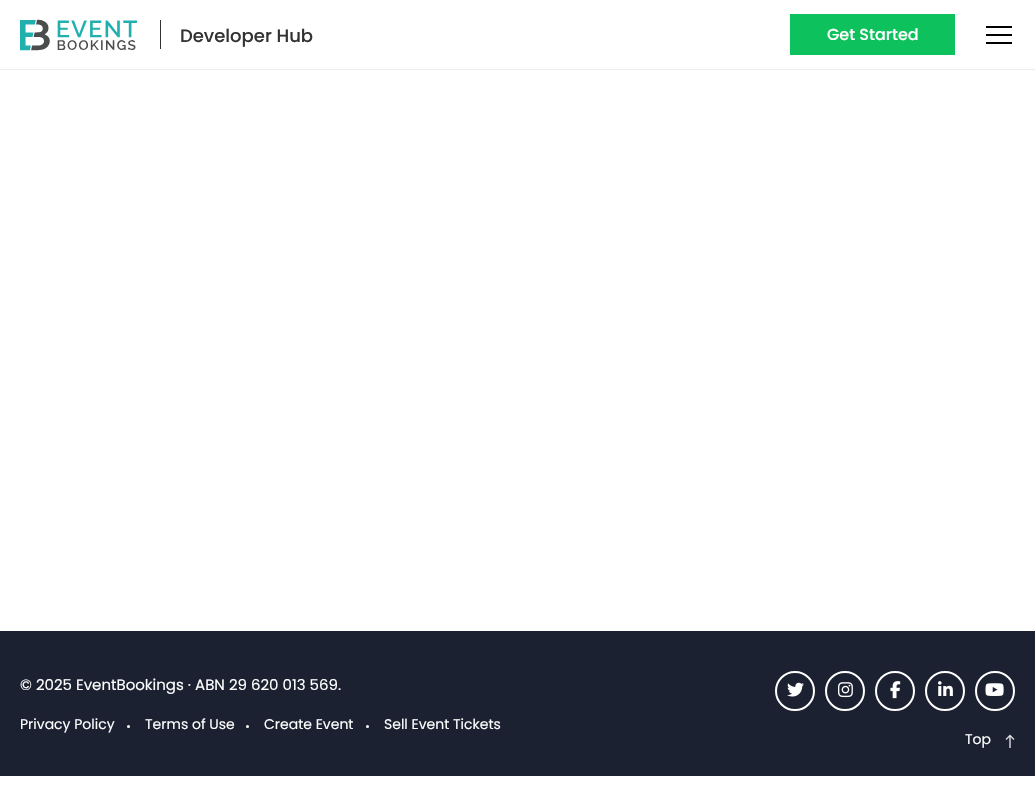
#include "include/core/SkBlurTypes.h"
#include "include/core/SkCanvas.h"
#include "include/core/SkData.h"
#include "include/core/SkFont.h"
#include "include/core/SkFontMgr.h"
#include "include/core/SkImage.h"
#include "include/core/SkMaskFilter.h"
#include "include/core/SkPaint.h"
#include "include/core/SkPathBuilder.h"
#include "include/core/SkTextBlob.h"
#include "include/effects/SkDashPathEffect.h"
#include "include/effects/SkGradientShader.h"
#include "include/utils/SkParsePath.h"

extern sk_sp<SkFontMgr> fontMgr;

void draw(SkCanvas* canvas) {
    SkPaint p;
    p.setAntiAlias(true);
    auto font = [&](const char* family, int weight, float size, bool italic = false) {
        SkFontStyle style(weight, SkFontStyle::kNormal_Width,
            italic ? SkFontStyle::kItalic_Slant : SkFontStyle::kUpright_Slant);
        SkFont result(fontMgr->matchFamilyStyle(family, style), size);
        result.setSubpixel(true);
        return result;
    };
    auto drawPhoto = [&](const char* path, float l, float t, float r, float b) {
        auto image = SkImages::DeferredFromEncodedData(SkData::MakeFromFileName(path));
        canvas->drawImageRect(image, SkRect::MakeLTRB(l, t, r, b), SkSamplingOptions());
    };
    canvas->clear(0xFFFFFFFF);
    p.setColor(0xFFECECEC);
    canvas->drawRect(SkRect::MakeLTRB(0, 69, 1035, 70), p);
    drawPhoto("media/1.png", 20, 19, 137, 51);
    p.setColor(0xFF333333);
    canvas->drawRect(SkRect::MakeLTRB(160, 20, 161, 49), p);
    auto font1 = font("Poppins", 500, 18);
    canvas->drawString("Developer Hub", 180, 42, font1, p);
    p.setColor(0xFF0DC15C);
    canvas->drawRect(SkRect::MakeLTRB(790, 14, 955, 55), p);
    auto font2 = font("Poppins", 500, 16);
    p.setColor(0xFFFFFFFF);
    canvas->drawString("Get Started", 827, 40, font2, p);
    {
        const struct { float l, t, r, b; SkColor color; } items[] = {
            {986, 26, 1012, 28, 0xFF000000},
            {986, 34, 1012, 36, 0xFF000000},
            {986, 42, 1012, 44, 0xFF000000},
            {0, 631, 1035, 776, 0xFF1C2131},
        };
        for (auto [l, t, r, b, color] : items) {
            p.setColor(color);
            canvas->drawRect(SkRect::MakeLTRB(l, t, r, b), p);
        }
    }
    auto font3 = font("Poppins", 400, 15);
    p.setColor(0xFFFFFFFF);
    canvas->drawString("© 2025 EventBookings · ABN 29 620 013 569.", 20, 690, font3, p);
    p.setStyle(SkPaint::kStroke_Style);
    p.setStrokeWidth(2);
    canvas->drawCircle(795, 691, 19, p);
    drawPhoto("media/2.png", 787, 682, 804, 697);
    canvas->drawCircle(845, 691, 19, p);
    drawPhoto("media/3.png", 838, 682, 853, 698);
    canvas->drawCircle(895, 691, 19, p);
    drawPhoto("media/4.png", 890, 681, 901, 699);
    canvas->drawCircle(945, 691, 19, p);
    drawPhoto("media/5.png", 938, 681, 953, 696);
    canvas->drawCircle(995, 691, 19, p);
    drawPhoto("media/6.png", 985, 683, 1004, 696);
    auto font4 = font("Poppins", 400, 14);
    p.setStyle(SkPaint::kFill_Style);
    canvas->drawString("Privacy Policy", 20, 729, font4, p);
    canvas->drawCircle(128.5f, 726.5f, 1.5f, p);
    canvas->drawString("Terms of Use", 145, 729, font4, p);
    canvas->drawCircle(247.5f, 726.5f, 1.5f, p);
    canvas->drawString("Create Event", 264, 729, font4, p);
    canvas->drawCircle(367.5f, 726.5f, 1.5f, p);
    canvas->drawString("Sell Event Tickets", 384, 729, font4, p);
    canvas->drawString("Top", 965, 744, font4, p);
    p.setColor(0xFFA4A6AD);
    canvas->drawRect(SkRect::MakeLTRB(1009, 736, 1011, 748), p);
    p.setStyle(SkPaint::kStroke_Style);
    p.setStrokeWidth(1.5f);
    p.setColor(0xCCFFFFFF);
    canvas->drawPath(SkPathBuilder().moveTo(1006, 739.5f).lineTo(1010, 735.5f).lineTo(1014, 739.5f).detach(), p);
}
